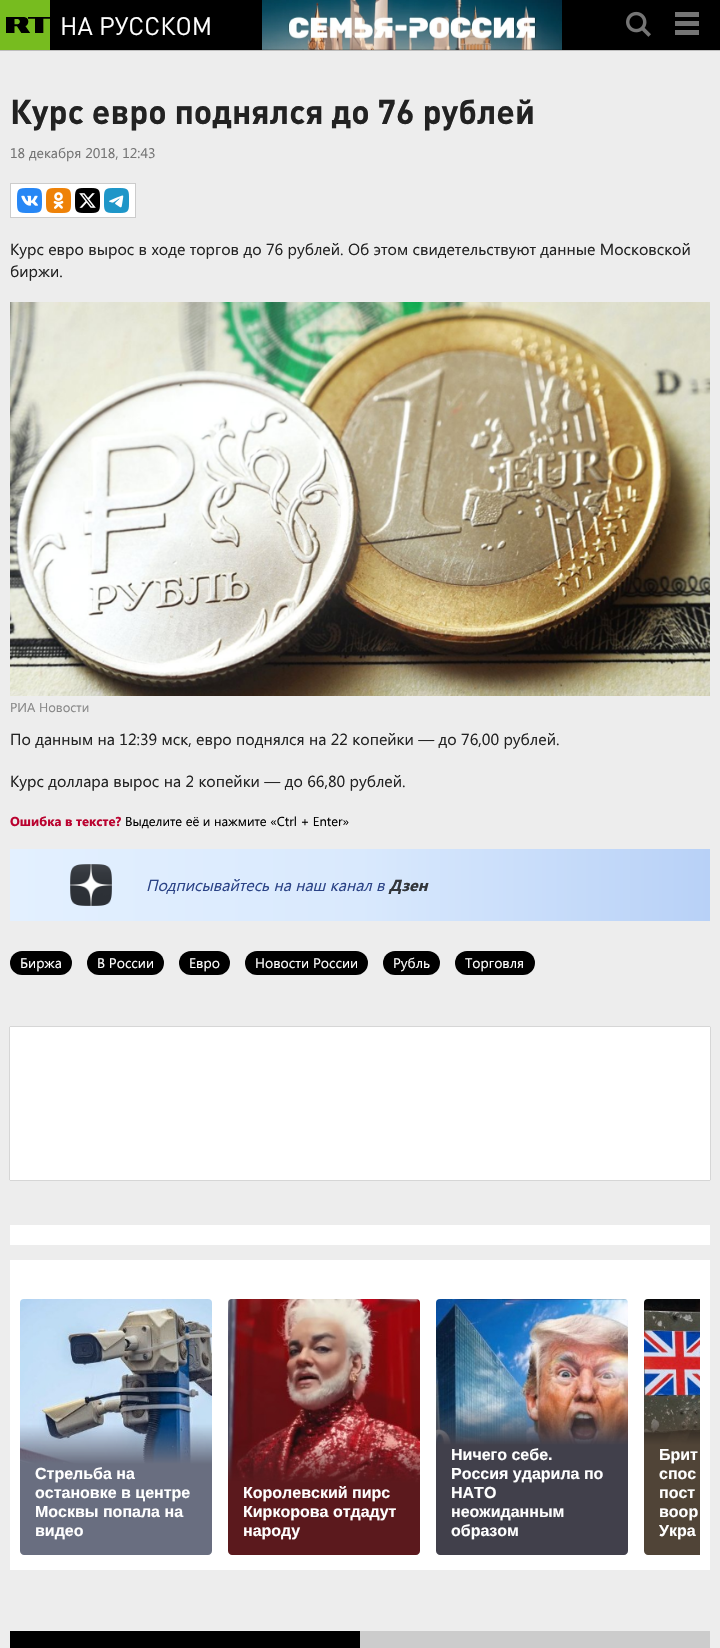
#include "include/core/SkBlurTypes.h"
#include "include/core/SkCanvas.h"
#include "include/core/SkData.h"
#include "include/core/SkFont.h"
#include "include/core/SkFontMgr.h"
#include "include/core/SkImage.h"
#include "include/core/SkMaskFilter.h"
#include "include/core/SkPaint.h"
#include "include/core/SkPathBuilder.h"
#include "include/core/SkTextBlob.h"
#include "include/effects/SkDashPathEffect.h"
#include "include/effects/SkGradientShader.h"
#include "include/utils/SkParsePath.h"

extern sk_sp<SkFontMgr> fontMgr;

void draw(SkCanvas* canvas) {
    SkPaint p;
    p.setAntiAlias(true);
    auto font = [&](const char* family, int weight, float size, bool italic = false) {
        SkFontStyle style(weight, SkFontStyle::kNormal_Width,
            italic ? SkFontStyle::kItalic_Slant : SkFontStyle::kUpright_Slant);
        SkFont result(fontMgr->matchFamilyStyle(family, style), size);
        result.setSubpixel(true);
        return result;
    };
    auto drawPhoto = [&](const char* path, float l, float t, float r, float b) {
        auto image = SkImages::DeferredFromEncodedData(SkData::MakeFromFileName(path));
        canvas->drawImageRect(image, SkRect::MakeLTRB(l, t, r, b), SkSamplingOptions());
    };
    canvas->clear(0xFFEDEDED);
    {
        const struct { float l, t, r, b; SkColor color; } items[] = {
            {50, 0, 720, 50, 0xFF000000},
            {0, 50, 720, 51, 0xFFBEBEBE},
            {0, 0, 50, 50, 0xFF77BC1F},
        };
        for (auto [l, t, r, b, color] : items) {
            p.setColor(color);
            canvas->drawRect(SkRect::MakeLTRB(l, t, r, b), p);
        }
    }
    drawPhoto("media/1.png", 6, 17, 50, 33);
    auto font1 = font("DIN", 400, 25);
    p.setColor(0xFFFFFFFF);
    canvas->drawString("НА РУССКОМ", 60, 35, font1, p);
    drawPhoto("media/2.png", 262, 0, 562, 50);
    drawPhoto("media/3.png", 626, 11, 651, 37);
    {
        const struct { float l, t, r, b; SkColor color; } items[] = {
            {675, 30, 699, 35, 0xFF757575},
            {675, 12, 699, 17, 0xFF757575},
            {675, 21, 699, 26, 0xFF757575},
        };
        for (auto [l, t, r, b, color] : items) {
            p.setColor(color);
            canvas->drawRect(SkRect::MakeLTRB(l, t, r, b), p);
        }
    }
    auto font2 = font("DIN", 700, 34);
    p.setColor(0xFF222222);
    canvas->drawString("Курс евро поднялся до 76 рублей", 10, 124, font2, p);
    auto font3 = font("Segoe UI", 400, 14);
    p.setColor(0xFF757575);
    canvas->drawString("18 декабря 2018, 12:43", 10, 158, font3, p);
    p.setColor(0xFFFFFFFF);
    canvas->drawRect(SkRect::MakeLTRB(10.5f, 183.5f, 135.5f, 217.5f), p);
    p.setStyle(SkPaint::kStroke_Style);
    p.setStrokeWidth(1);
    p.setColor(0xFFCCCCCC);
    canvas->drawRect(SkRect::MakeLTRB(10.5f, 183.5f, 135.5f, 217.5f), p);
    drawPhoto("media/4.png", 17, 188, 42, 213);
    drawPhoto("media/5.png", 46, 188, 71, 213);
    drawPhoto("media/6.png", 75, 188, 100, 213);
    drawPhoto("media/7.png", 104, 188, 129, 213);
    auto font4 = font("Segoe UI", 400, 16);
    p.setStyle(SkPaint::kFill_Style);
    p.setColor(0xFF222222);
    canvas->drawString("Курс евро вырос в ходе торгов до 76 рублей. Об этом свидетельствуют данные Московской", 10, 255, font4, p);
    canvas->drawString("биржи.", 10, 277, font4, p);
    drawPhoto("media/8.png", 10, 302, 710, 696);
    auto font5 = font("Segoe UI", 400, 13);
    p.setColor(0xFF888888);
    canvas->drawString("РИА Новости", 10, 712, font5, p);
    p.setColor(0xFF222222);
    canvas->drawString("По данным на 12:39 мск, евро поднялся на 22 копейки — до 76,00 рублей.", 10, 745, font4, p);
    canvas->drawString("Курс доллара вырос на 2 копейки — до 66,80 рублей.", 10, 787, font4, p);
    auto font6 = font("Segoe UI", 700, 13);
    p.setColor(0xFFBA022F);
    canvas->drawString("Ошибка в тексте?", 10, 826, font6, p);
    p.setColor(0xFF000000);
    canvas->drawString("Выделите её и нажмите «Ctrl + Enter»", 125, 826, font5, p);
    {
        const SkColor colors[] = {0xFFE3F0FF, 0xFFD9E9FD, 0xFFB8D1F7};
        const float stops[] = {0, 0.5f, 1};
        const SkPoint ends[] = {{10, 885}, {710, 885}};
        p.setShader(SkGradientShader::MakeLinear(ends, colors, stops, 3, SkTileMode::kClamp));
        p.setAlpha(255);
    }
    canvas->drawRect(SkRect::MakeLTRB(10, 849, 710, 921), p);
    drawPhoto("media/9.png", 70, 864, 112, 906);
    auto font7 = font("Segoe UI", 400, 16, true);
    p.setShader(nullptr);
    p.setColor(0xFF2B4386);
    canvas->drawString("Подписывайтесь на наш канал в", 146, 891, font7, p);
    auto font8 = font("Segoe UI", 700, 16, true);
    p.setColor(0xFF32363B);
    canvas->drawString("Дзен", 389, 891, font8, p);
    p.setColor(0xFF000000);
    canvas->drawRoundRect(SkRect::MakeLTRB(10, 951, 72, 975), 12, 12, p);
    p.setColor(0xFFFFFFFF);
    canvas->drawString("Биржа", 20, 968, font3, p);
    p.setColor(0xFF000000);
    canvas->drawRoundRect(SkRect::MakeLTRB(87, 951, 164, 975), 12, 12, p);
    p.setColor(0xFFFFFFFF);
    canvas->drawString("В России", 97, 968, font3, p);
    p.setColor(0xFF000000);
    canvas->drawRoundRect(SkRect::MakeLTRB(179, 951, 230, 975), 12, 12, p);
    p.setColor(0xFFFFFFFF);
    canvas->drawString("Евро", 189, 968, font3, p);
    p.setColor(0xFF000000);
    canvas->drawRoundRect(SkRect::MakeLTRB(245, 951, 368, 975), 12, 12, p);
    p.setColor(0xFFFFFFFF);
    canvas->drawString("Новости России", 255, 968, font3, p);
    p.setColor(0xFF000000);
    canvas->drawRoundRect(SkRect::MakeLTRB(383, 951, 440, 975), 12, 12, p);
    p.setColor(0xFFFFFFFF);
    canvas->drawString("Рубль", 393, 968, font3, p);
    p.setColor(0xFF000000);
    canvas->drawRoundRect(SkRect::MakeLTRB(455, 951, 535, 975), 12, 12, p);
    p.setColor(0xFFFFFFFF);
    canvas->drawString("Торговля", 465, 968, font3, p);
    p.setColor(0xFF666666);
    p.setMaskFilter(SkMaskFilter::MakeBlur(kNormal_SkBlurStyle, 0.5f));
    canvas->drawRect(SkRect::MakeLTRB(10, 1027, 710, 1180), p);
    p.setMaskFilter(nullptr);
    {
        const struct { float l, t, r, b; SkColor color; } items[] = {
            {10, 1027, 710, 1180, 0xFFFFFFFF},
            {10, 1225, 710, 1245, 0xFFFFFFFF},
            {10, 1260, 710, 1570, 0xFFFFFFFF},
        };
        for (auto [l, t, r, b, color] : items) {
            p.setColor(color);
            canvas->drawRect(SkRect::MakeLTRB(l, t, r, b), p);
        }
    }
    drawPhoto("media/10.png", 20, 1299, 212, 1464);
    p.setColor(0xFF696E80);
    canvas->drawPath(SkPathBuilder().moveTo(20, 1464).lineTo(212, 1464).lineTo(212, 1551).cubicTo(212, 1553, 210, 1555, 208, 1555).lineTo(24, 1555).cubicTo(22, 1555, 20, 1553, 20, 1551).close().detach(), p);
    auto font9 = font("Liberation Sans", 700, 16);
    p.setColor(0xFFFFFFFF);
    {
        const struct { const char* s; float x, y; } items[] = {
            {"Стрельба на", 35, 1479},
            {"остановке в центре", 35, 1498},
            {"Москвы попала на", 35, 1517},
            {"видео", 35, 1536},
        };
        for (auto [s, x, y] : items) {
            canvas->drawString(s, x, y, font9, p);
        }
    }
    drawPhoto("media/11.png", 228, 1299, 420, 1483);
    p.setColor(0xFF5B191D);
    canvas->drawPath(SkPathBuilder().moveTo(228, 1483).lineTo(420, 1483).lineTo(420, 1551).cubicTo(420, 1553, 418, 1555, 416, 1555).lineTo(232, 1555).cubicTo(230, 1555, 228, 1553, 228, 1551).close().detach(), p);
    p.setColor(0xFFFFFFFF);
    {
        const struct { const char* s; float x, y; } items[] = {
            {"Королевский пирс", 243, 1498},
            {"Киркорова отдадут", 243, 1517},
            {"народу", 243, 1536},
        };
        for (auto [s, x, y] : items) {
            canvas->drawString(s, x, y, font9, p);
        }
    }
    drawPhoto("media/12.png", 436, 1299, 628, 1445);
    p.setColor(0xFF41404B);
    canvas->drawPath(SkPathBuilder().moveTo(436, 1445).lineTo(628, 1445).lineTo(628, 1551).cubicTo(628, 1553, 626, 1555, 624, 1555).lineTo(440, 1555).cubicTo(438, 1555, 436, 1553, 436, 1551).close().detach(), p);
    p.setColor(0xFFFFFFFF);
    {
        const struct { const char* s; float x, y; } items[] = {
            {"Ничего себе.", 451, 1460},
            {"Россия ударила по", 451, 1479},
            {"НАТО", 451, 1498},
            {"неожиданным", 451, 1517},
            {"образом", 451, 1536},
        };
        for (auto [s, x, y] : items) {
            canvas->drawString(s, x, y, font9, p);
        }
    }
    drawPhoto("media/13.png", 644, 1299, 700, 1445);
    p.setColor(0xFF504437);
    canvas->drawPath(SkPathBuilder().moveTo(644, 1445).lineTo(700, 1445).lineTo(700, 1555).lineTo(648, 1555).cubicTo(646, 1555, 644, 1553, 644, 1551).close().detach(), p);
    p.setColor(0xFFFFFFFF);
    {
        const struct { const char* s; float x, y; } items[] = {
            {"Брит", 659, 1460},
            {"спос", 659, 1479},
            {"пост", 659, 1498},
            {"воор", 659, 1517},
            {"Укра", 659, 1536},
        };
        for (auto [s, x, y] : items) {
            canvas->drawString(s, x, y, font9, p);
        }
    }
    p.setColor(0xFF000000);
    canvas->drawRect(SkRect::MakeLTRB(10, 1631, 360, 1648), p);
    p.setColor(0xFFCCCCCC);
    canvas->drawRect(SkRect::MakeLTRB(360, 1631, 710, 1648), p);
}
